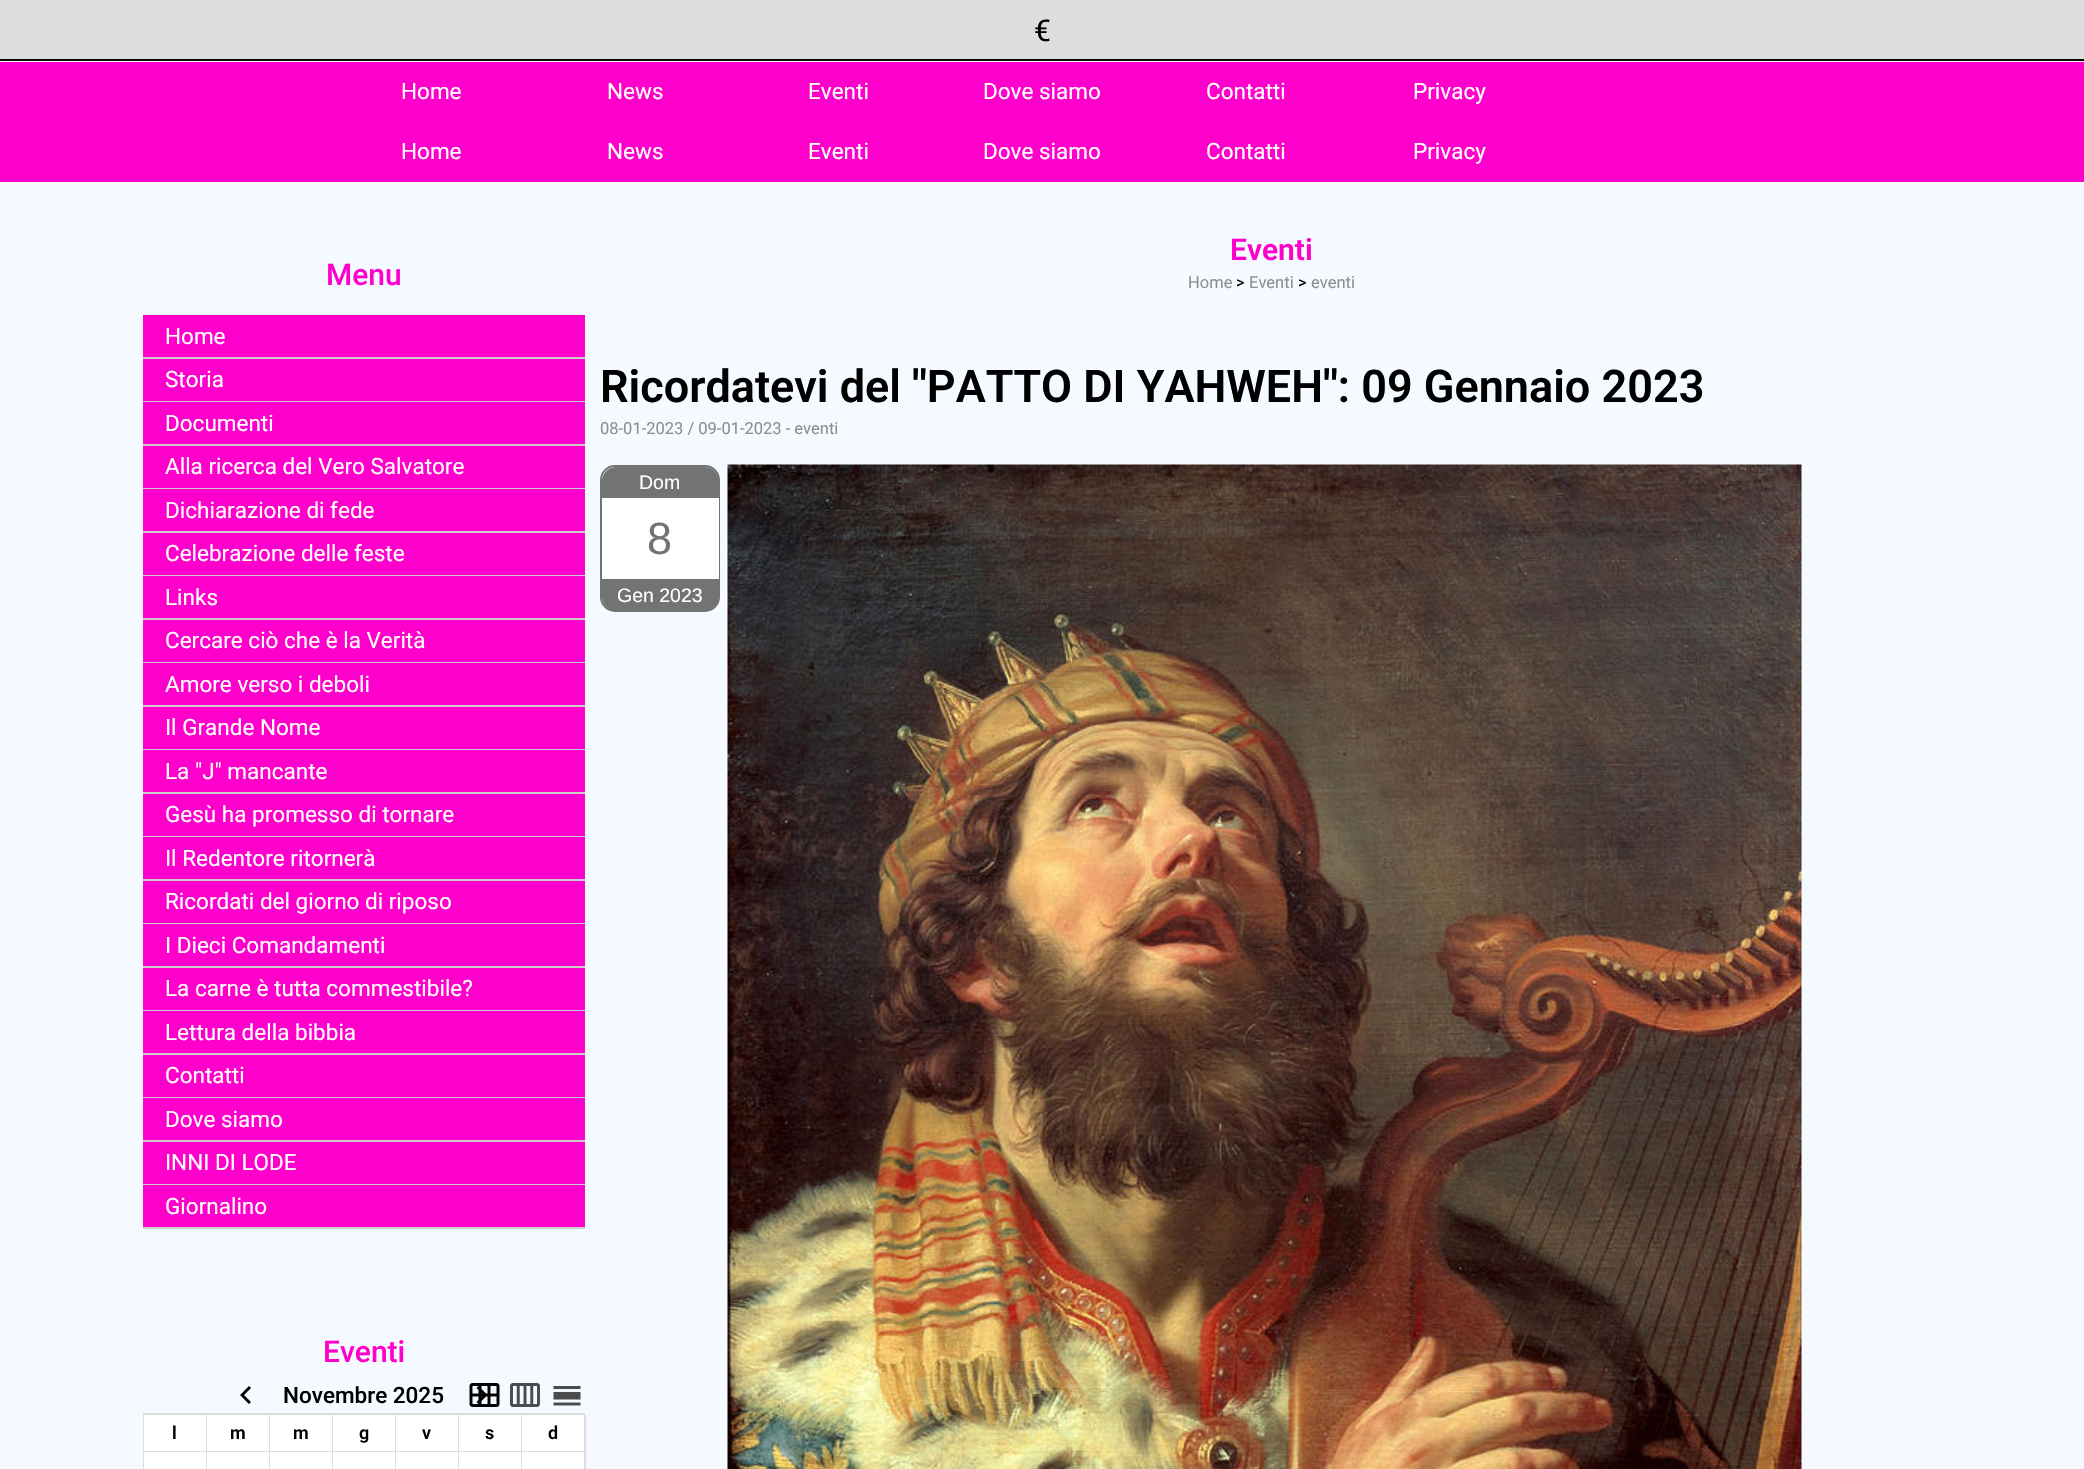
#include "include/core/SkBlurTypes.h"
#include "include/core/SkCanvas.h"
#include "include/core/SkData.h"
#include "include/core/SkFont.h"
#include "include/core/SkFontMgr.h"
#include "include/core/SkImage.h"
#include "include/core/SkMaskFilter.h"
#include "include/core/SkPaint.h"
#include "include/core/SkPathBuilder.h"
#include "include/core/SkTextBlob.h"
#include "include/effects/SkDashPathEffect.h"
#include "include/effects/SkGradientShader.h"
#include "include/utils/SkParsePath.h"

extern sk_sp<SkFontMgr> fontMgr;

void draw(SkCanvas* canvas) {
    SkPaint p;
    p.setAntiAlias(true);
    auto font = [&](const char* family, int weight, float size, bool italic = false) {
        SkFontStyle style(weight, SkFontStyle::kNormal_Width,
            italic ? SkFontStyle::kItalic_Slant : SkFontStyle::kUpright_Slant);
        SkFont result(fontMgr->matchFamilyStyle(family, style), size);
        result.setSubpixel(true);
        return result;
    };
    auto drawPhoto = [&](const char* path, float l, float t, float r, float b) {
        auto image = SkImages::DeferredFromEncodedData(SkData::MakeFromFileName(path));
        canvas->drawImageRect(image, SkRect::MakeLTRB(l, t, r, b), SkSamplingOptions());
    };
    canvas->clear(0xFFF4FAFF);
    p.setColor(0xFFDDDDDD);
    canvas->drawRect(SkRect::MakeLTRB(0, 0, 2084, 59), p);
    p.setColor(0xFF000000);
    canvas->drawRect(SkRect::MakeLTRB(0, 59, 2084, 61), p);
    auto font1 = font("Roboto", 400, 30);
    canvas->drawString("€", 1034, 41, font1, p);
    p.setColor(0xFFFF00CC);
    canvas->drawRect(SkRect::MakeLTRB(0, 62, 2084, 182), p);
    auto font2 = font("Roboto", 400, 22.5f);
    p.setColor(0xFFFFFFFF);
    {
        const struct { const char* s; float x, y; } items[] = {
            {"Home", 401, 99},
            {"News", 607, 99},
            {"Eventi", 808, 99},
            {"Dove siamo", 983, 99},
            {"Contatti", 1206, 99},
            {"Privacy", 1413, 99},
            {"Home", 401, 159},
            {"News", 607, 159},
            {"Eventi", 808, 159},
            {"Dove siamo", 983, 159},
            {"Contatti", 1206, 159},
            {"Privacy", 1413, 159},
        };
        for (auto [s, x, y] : items) {
            canvas->drawString(s, x, y, font2, p);
        }
    }
    auto font3 = font("Roboto", 500, 30);
    p.setColor(0xFFFF00CC);
    canvas->drawString("Menu", 326, 285, font3, p);
    canvas->drawRect(SkRect::MakeLTRB(143, 315, 585, 357), p);
    p.setColor(0xFFCCCCCC);
    canvas->drawRect(SkRect::MakeLTRB(143, 357, 585, 359), p);
    p.setColor(0xFFFFFFFF);
    canvas->drawString("Home", 165, 344, font2, p);
    p.setColor(0xFFFF00CC);
    canvas->drawRect(SkRect::MakeLTRB(143, 359, 585, 401), p);
    p.setColor(0xFFCCCCCC);
    canvas->drawRect(SkRect::MakeLTRB(143, 401, 585, 402), p);
    p.setColor(0xFFFFFFFF);
    canvas->drawString("Storia", 165, 387, font2, p);
    p.setColor(0xFFFF00CC);
    canvas->drawRect(SkRect::MakeLTRB(143, 402, 585, 444), p);
    p.setColor(0xFFCCCCCC);
    canvas->drawRect(SkRect::MakeLTRB(143, 444, 585, 446), p);
    p.setColor(0xFFFFFFFF);
    canvas->drawString("Documenti", 165, 431, font2, p);
    p.setColor(0xFFFF00CC);
    canvas->drawRect(SkRect::MakeLTRB(143, 446, 585, 488), p);
    p.setColor(0xFFCCCCCC);
    canvas->drawRect(SkRect::MakeLTRB(143, 488, 585, 489), p);
    p.setColor(0xFFFFFFFF);
    canvas->drawString("Alla ricerca del Vero Salvatore", 165, 474, font2, p);
    p.setColor(0xFFFF00CC);
    canvas->drawRect(SkRect::MakeLTRB(143, 489, 585, 531), p);
    p.setColor(0xFFCCCCCC);
    canvas->drawRect(SkRect::MakeLTRB(143, 531, 585, 533), p);
    p.setColor(0xFFFFFFFF);
    canvas->drawString("Dichiarazione di fede", 165, 518, font2, p);
    p.setColor(0xFFFF00CC);
    canvas->drawRect(SkRect::MakeLTRB(143, 533, 585, 575), p);
    p.setColor(0xFFCCCCCC);
    canvas->drawRect(SkRect::MakeLTRB(143, 575, 585, 576), p);
    p.setColor(0xFFFFFFFF);
    canvas->drawString("Celebrazione delle feste", 165, 561, font2, p);
    p.setColor(0xFFFF00CC);
    canvas->drawRect(SkRect::MakeLTRB(143, 576, 585, 618), p);
    p.setColor(0xFFCCCCCC);
    canvas->drawRect(SkRect::MakeLTRB(143, 618, 585, 620), p);
    p.setColor(0xFFFFFFFF);
    canvas->drawString("Links", 165, 605, font2, p);
    p.setColor(0xFFFF00CC);
    canvas->drawRect(SkRect::MakeLTRB(143, 620, 585, 662), p);
    p.setColor(0xFFCCCCCC);
    canvas->drawRect(SkRect::MakeLTRB(143, 662, 585, 663), p);
    p.setColor(0xFFFFFFFF);
    canvas->drawString("Cercare ciò che è la Verità", 165, 648, font2, p);
    p.setColor(0xFFFF00CC);
    canvas->drawRect(SkRect::MakeLTRB(143, 663, 585, 705), p);
    p.setColor(0xFFCCCCCC);
    canvas->drawRect(SkRect::MakeLTRB(143, 705, 585, 707), p);
    p.setColor(0xFFFFFFFF);
    canvas->drawString("Amore verso i deboli", 165, 692, font2, p);
    p.setColor(0xFFFF00CC);
    canvas->drawRect(SkRect::MakeLTRB(143, 707, 585, 749), p);
    p.setColor(0xFFCCCCCC);
    canvas->drawRect(SkRect::MakeLTRB(143, 749, 585, 750), p);
    p.setColor(0xFFFFFFFF);
    canvas->drawString("Il Grande Nome", 165, 735, font2, p);
    p.setColor(0xFFFF00CC);
    canvas->drawRect(SkRect::MakeLTRB(143, 750, 585, 792), p);
    p.setColor(0xFFCCCCCC);
    canvas->drawRect(SkRect::MakeLTRB(143, 792, 585, 794), p);
    p.setColor(0xFFFFFFFF);
    canvas->drawString("La \"J\" mancante", 165, 779, font2, p);
    p.setColor(0xFFFF00CC);
    canvas->drawRect(SkRect::MakeLTRB(143, 794, 585, 836), p);
    p.setColor(0xFFCCCCCC);
    canvas->drawRect(SkRect::MakeLTRB(143, 836, 585, 837), p);
    p.setColor(0xFFFFFFFF);
    canvas->drawString("Gesù ha promesso di tornare", 165, 822, font2, p);
    p.setColor(0xFFFF00CC);
    canvas->drawRect(SkRect::MakeLTRB(143, 837, 585, 879), p);
    p.setColor(0xFFCCCCCC);
    canvas->drawRect(SkRect::MakeLTRB(143, 879, 585, 881), p);
    p.setColor(0xFFFFFFFF);
    canvas->drawString("Il Redentore ritornerà", 165, 866, font2, p);
    p.setColor(0xFFFF00CC);
    canvas->drawRect(SkRect::MakeLTRB(143, 881, 585, 923), p);
    p.setColor(0xFFCCCCCC);
    canvas->drawRect(SkRect::MakeLTRB(143, 923, 585, 924), p);
    p.setColor(0xFFFFFFFF);
    canvas->drawString("Ricordati del giorno di riposo", 165, 909, font2, p);
    p.setColor(0xFFFF00CC);
    canvas->drawRect(SkRect::MakeLTRB(143, 924, 585, 966), p);
    p.setColor(0xFFCCCCCC);
    canvas->drawRect(SkRect::MakeLTRB(143, 966, 585, 968), p);
    p.setColor(0xFFFFFFFF);
    canvas->drawString("I Dieci Comandamenti", 165, 953, font2, p);
    p.setColor(0xFFFF00CC);
    canvas->drawRect(SkRect::MakeLTRB(143, 968, 585, 1010), p);
    p.setColor(0xFFCCCCCC);
    canvas->drawRect(SkRect::MakeLTRB(143, 1010, 585, 1011), p);
    p.setColor(0xFFFFFFFF);
    canvas->drawString("La carne è tutta commestibile?", 165, 996, font2, p);
    p.setColor(0xFFFF00CC);
    canvas->drawRect(SkRect::MakeLTRB(143, 1011, 585, 1053), p);
    p.setColor(0xFFCCCCCC);
    canvas->drawRect(SkRect::MakeLTRB(143, 1053, 585, 1055), p);
    p.setColor(0xFFFFFFFF);
    canvas->drawString("Lettura della bibbia", 165, 1040, font2, p);
    p.setColor(0xFFFF00CC);
    canvas->drawRect(SkRect::MakeLTRB(143, 1055, 585, 1097), p);
    p.setColor(0xFFCCCCCC);
    canvas->drawRect(SkRect::MakeLTRB(143, 1097, 585, 1098), p);
    p.setColor(0xFFFFFFFF);
    canvas->drawString("Contatti", 165, 1083, font2, p);
    p.setColor(0xFFFF00CC);
    canvas->drawRect(SkRect::MakeLTRB(143, 1098, 585, 1140), p);
    p.setColor(0xFFCCCCCC);
    canvas->drawRect(SkRect::MakeLTRB(143, 1140, 585, 1142), p);
    p.setColor(0xFFFFFFFF);
    canvas->drawString("Dove siamo", 165, 1127, font2, p);
    p.setColor(0xFFFF00CC);
    canvas->drawRect(SkRect::MakeLTRB(143, 1142, 585, 1184), p);
    p.setColor(0xFFCCCCCC);
    canvas->drawRect(SkRect::MakeLTRB(143, 1184, 585, 1185), p);
    p.setColor(0xFFFFFFFF);
    canvas->drawString("INNI DI LODE", 165, 1170, font2, p);
    p.setColor(0xFFFF00CC);
    canvas->drawRect(SkRect::MakeLTRB(143, 1185, 585, 1227), p);
    p.setColor(0xFFCCCCCC);
    canvas->drawRect(SkRect::MakeLTRB(143, 1227, 585, 1229), p);
    p.setColor(0xFFFFFFFF);
    canvas->drawString("Giornalino", 165, 1214, font2, p);
    p.setColor(0xFFFF00CC);
    canvas->drawString("Eventi", 323, 1362, font3, p);
    p.setColor(0xFF000000);
    canvas->drawPath(SkPathBuilder().moveTo(251, 1402).lineTo(249, 1404).lineTo(240, 1395).lineTo(249, 1386).lineTo(251, 1388).lineTo(244, 1395).close().detach(), p);
    auto font4 = font("Roboto", 500, 22.5f);
    canvas->drawString("Novembre 2025", 283, 1403, font4, p);
    canvas->drawPath(SkPathBuilder().moveTo(476.5f, 1402).lineTo(483.5f, 1395).lineTo(476.5f, 1388).lineTo(478.5f, 1386).lineTo(487.5f, 1395).lineTo(478.5f, 1404).close().detach(), p);
    drawPhoto("media/1.png", 469, 1383, 500, 1407);
    drawPhoto("media/2.png", 510, 1383, 540, 1407);
    drawPhoto("media/3.png", 553, 1386, 581, 1406);
    {
        const struct { float l, t, r, b; SkColor color; } items[] = {
            {143, 1413, 585, 1415, 0xFFDDDDDD},
            {143, 1413, 145, 1469, 0xFFDDDDDD},
            {144, 1415, 206, 1451, 0xFFFFFFFF},
            {206, 1415, 207, 1469, 0xFFDDDDDD},
            {144, 1451, 207, 1452, 0xFFDDDDDD},
        };
        for (auto [l, t, r, b, color] : items) {
            p.setColor(color);
            canvas->drawRect(SkRect::MakeLTRB(l, t, r, b), p);
        }
    }
    auto font5 = font("Roboto", 600, 18);
    p.setColor(0xFF000000);
    canvas->drawString("l", 172, 1439, font5, p);
    {
        const struct { float l, t, r, b; SkColor color; } items[] = {
            {207, 1415, 269, 1451, 0xFFFFFFFF},
            {269, 1415, 270, 1469, 0xFFDDDDDD},
            {207, 1451, 270, 1452, 0xFFDDDDDD},
        };
        for (auto [l, t, r, b, color] : items) {
            p.setColor(color);
            canvas->drawRect(SkRect::MakeLTRB(l, t, r, b), p);
        }
    }
    p.setColor(0xFF000000);
    canvas->drawString("m", 230, 1439, font5, p);
    {
        const struct { float l, t, r, b; SkColor color; } items[] = {
            {270, 1415, 332, 1451, 0xFFFFFFFF},
            {332, 1415, 333, 1469, 0xFFDDDDDD},
            {270, 1451, 333, 1452, 0xFFDDDDDD},
        };
        for (auto [l, t, r, b, color] : items) {
            p.setColor(color);
            canvas->drawRect(SkRect::MakeLTRB(l, t, r, b), p);
        }
    }
    p.setColor(0xFF000000);
    canvas->drawString("m", 293, 1439, font5, p);
    {
        const struct { float l, t, r, b; SkColor color; } items[] = {
            {333, 1415, 395, 1451, 0xFFFFFFFF},
            {395, 1415, 396, 1469, 0xFFDDDDDD},
            {333, 1451, 396, 1452, 0xFFDDDDDD},
        };
        for (auto [l, t, r, b, color] : items) {
            p.setColor(color);
            canvas->drawRect(SkRect::MakeLTRB(l, t, r, b), p);
        }
    }
    p.setColor(0xFF000000);
    canvas->drawString("g", 359, 1439, font5, p);
    {
        const struct { float l, t, r, b; SkColor color; } items[] = {
            {396, 1415, 458, 1451, 0xFFFFFFFF},
            {458, 1415, 459, 1469, 0xFFDDDDDD},
            {396, 1451, 459, 1452, 0xFFDDDDDD},
        };
        for (auto [l, t, r, b, color] : items) {
            p.setColor(color);
            canvas->drawRect(SkRect::MakeLTRB(l, t, r, b), p);
        }
    }
    p.setColor(0xFF000000);
    canvas->drawString("v", 422, 1439, font5, p);
    {
        const struct { float l, t, r, b; SkColor color; } items[] = {
            {459, 1415, 521, 1451, 0xFFFFFFFF},
            {521, 1415, 522, 1469, 0xFFDDDDDD},
            {459, 1451, 522, 1452, 0xFFDDDDDD},
        };
        for (auto [l, t, r, b, color] : items) {
            p.setColor(color);
            canvas->drawRect(SkRect::MakeLTRB(l, t, r, b), p);
        }
    }
    p.setColor(0xFF000000);
    canvas->drawString("s", 485, 1439, font5, p);
    {
        const struct { float l, t, r, b; SkColor color; } items[] = {
            {522, 1415, 584, 1451, 0xFFFFFFFF},
            {584, 1415, 586, 1469, 0xFFDDDDDD},
            {522, 1451, 585, 1452, 0xFFDDDDDD},
        };
        for (auto [l, t, r, b, color] : items) {
            p.setColor(color);
            canvas->drawRect(SkRect::MakeLTRB(l, t, r, b), p);
        }
    }
    p.setColor(0xFF000000);
    canvas->drawString("d", 548, 1439, font5, p);
    {
        const struct { float l, t, r, b; SkColor color; } items[] = {
            {144, 1452, 206, 1469, 0xFFFFFFFF},
            {207, 1452, 269, 1469, 0xFFFFFFFF},
            {270, 1452, 332, 1469, 0xFFFFFFFF},
            {333, 1452, 395, 1469, 0xFFFFFFFF},
            {396, 1452, 458, 1469, 0xFFFFFFFF},
            {459, 1452, 521, 1469, 0xFFFFFFFF},
            {522, 1452, 584, 1469, 0xFFFFFFFF},
        };
        for (auto [l, t, r, b, color] : items) {
            p.setColor(color);
            canvas->drawRect(SkRect::MakeLTRB(l, t, r, b), p);
        }
    }
    auto font6 = font("Roboto", 600, 30);
    p.setColor(0xFFFF00CC);
    canvas->drawString("Eventi", 1230, 260, font6, p);
    auto font7 = font("Roboto", 400, 16.5f);
    p.setColor(0xFF8E8E8E);
    canvas->drawString("Home", 1188, 288, font7, p);
    p.setColor(0xFF000000);
    canvas->drawString(">", 1236, 288, font7, p);
    p.setColor(0xFF8E8E8E);
    canvas->drawString("Eventi", 1249, 288, font7, p);
    p.setColor(0xFF000000);
    canvas->drawString(">", 1298, 288, font7, p);
    p.setColor(0xFF8E8E8E);
    canvas->drawString("eventi", 1311, 288, font7, p);
    auto font8 = font("Roboto", 600, 45);
    p.setColor(0xFF000000);
    canvas->drawString("Ricordatevi del ''PATTO DI YAHWEH'': 09 Gennaio 2023", 600, 402, font8, p);
    p.setColor(0xFF8E8E8E);
    canvas->drawString("08-01-2023 / 09-01-2023 - eventi", 600, 434, font7, p);
    p.setStyle(SkPaint::kStroke_Style);
    p.setStrokeWidth(2);
    p.setColor(0xFF737373);
    canvas->drawRoundRect(SkRect::MakeLTRB(601, 466, 719, 611), 14, 14, p);
    p.setStyle(SkPaint::kFill_Style);
    canvas->drawPath(SkPathBuilder().moveTo(616, 467).lineTo(705, 467).cubicTo(712.5f, 467, 719, 473.5f, 719, 481).lineTo(719, 498).lineTo(602, 498).lineTo(602, 481).cubicTo(602, 473.5f, 608.5f, 467, 616, 467).close().detach(), p);
    auto font9 = font("Liberation Sans", 400, 19.5f);
    p.setColor(0xFFFFFFFF);
    canvas->drawString("Dom", 639, 489, font9, p);
    canvas->drawRect(SkRect::MakeLTRB(602, 498, 719, 579), p);
    auto font10 = font("Liberation Sans", 400, 45);
    p.setColor(0xFF737373);
    canvas->drawString("8", 647, 554, font10, p);
    canvas->drawPath(SkPathBuilder().moveTo(602, 579).lineTo(719, 579).lineTo(719, 597).cubicTo(719, 604.5f, 712.5f, 611, 705, 611).lineTo(616, 611).cubicTo(608.5f, 611, 602, 604.5f, 602, 597).close().detach(), p);
    p.setColor(0xFFFFFFFF);
    canvas->drawString("Gen 2023", 617, 602, font9, p);
    drawPhoto("media/4.png", 727, 464, 1802, 1469);
}
